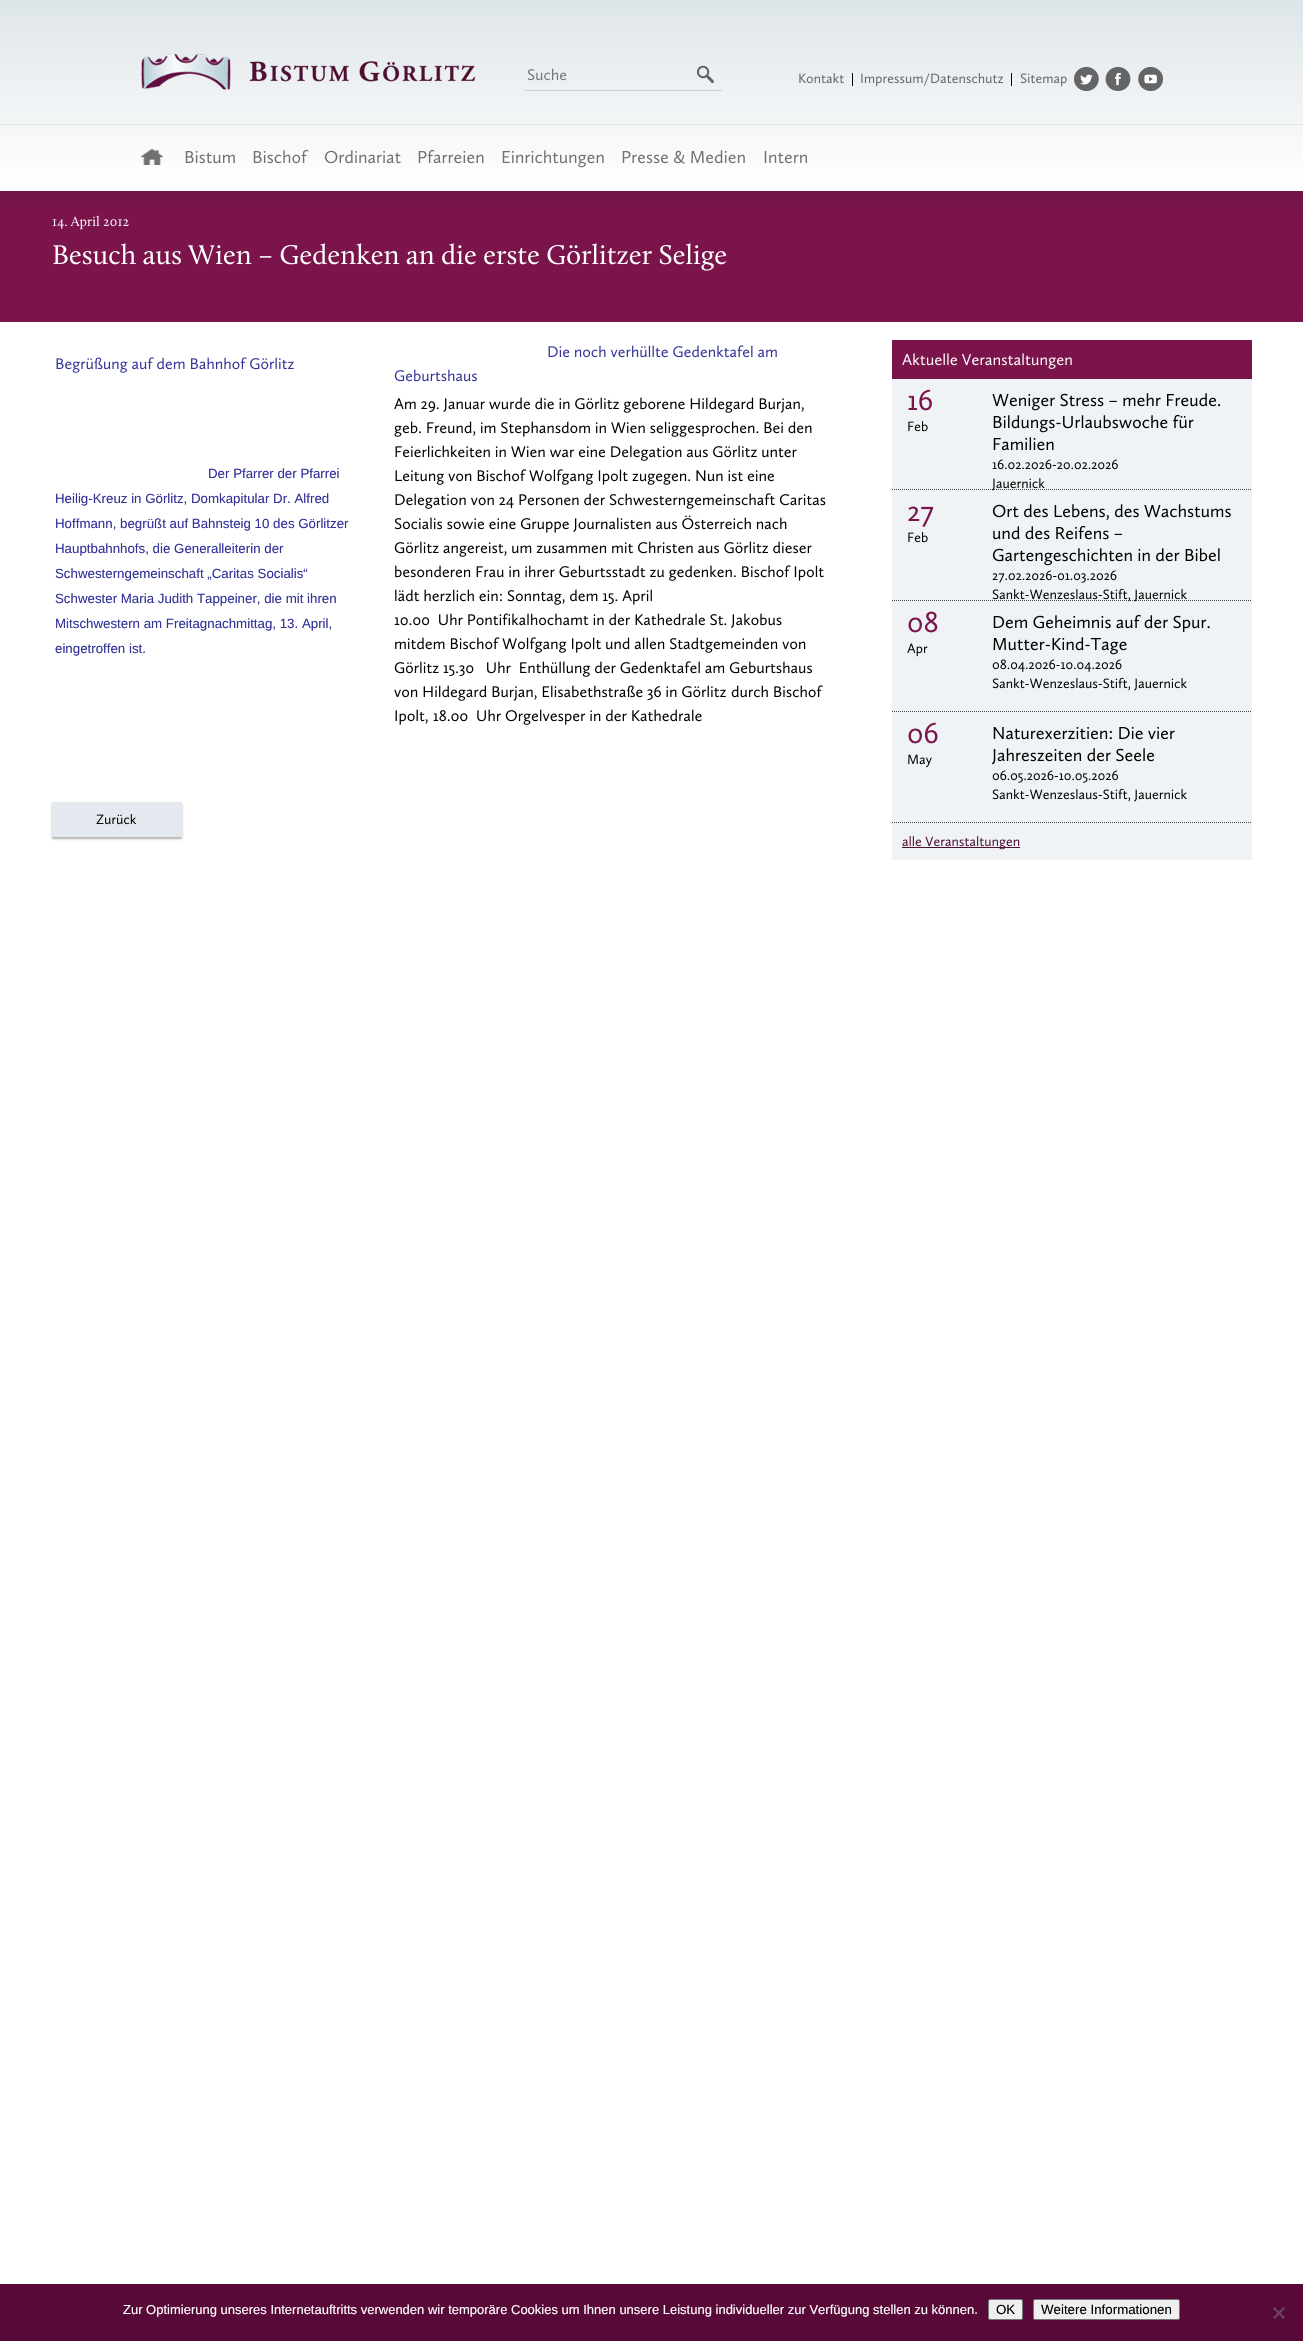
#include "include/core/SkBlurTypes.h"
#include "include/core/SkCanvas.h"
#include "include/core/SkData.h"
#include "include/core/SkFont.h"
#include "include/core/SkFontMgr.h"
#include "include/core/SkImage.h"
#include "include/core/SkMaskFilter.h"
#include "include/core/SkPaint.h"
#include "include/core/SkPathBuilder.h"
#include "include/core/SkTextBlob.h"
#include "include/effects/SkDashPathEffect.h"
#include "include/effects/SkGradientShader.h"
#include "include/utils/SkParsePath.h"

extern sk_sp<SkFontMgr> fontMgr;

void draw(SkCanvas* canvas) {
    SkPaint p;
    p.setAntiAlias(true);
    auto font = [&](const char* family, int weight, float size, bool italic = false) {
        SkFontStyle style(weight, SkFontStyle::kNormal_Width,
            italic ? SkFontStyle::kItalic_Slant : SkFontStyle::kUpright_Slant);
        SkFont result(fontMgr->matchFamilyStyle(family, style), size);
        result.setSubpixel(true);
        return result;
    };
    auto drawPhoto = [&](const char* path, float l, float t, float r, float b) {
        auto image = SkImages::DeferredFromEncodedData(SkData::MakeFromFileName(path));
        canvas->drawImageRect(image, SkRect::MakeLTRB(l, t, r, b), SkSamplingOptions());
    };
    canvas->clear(0xFFFFFFFF);
    drawPhoto("media/1.png", 0, 0, 1303, 322);
    drawPhoto("media/2.png", 141, 54, 475, 90);
    drawPhoto("media/3.png", 697, 65, 714, 83);
    p.setColor(0xFFC8D2DA);
    canvas->drawRect(SkRect::MakeLTRB(525, 90, 722, 91), p);
    drawPhoto("media/4.png", 527, 68, 567, 81);
    drawPhoto("media/5.png", 799, 73, 844, 84);
    p.setColor(0xFF000000);
    canvas->drawRect(SkRect::MakeLTRB(852, 73, 853, 86), p);
    drawPhoto("media/6.png", 861, 73, 1003, 87);
    canvas->drawRect(SkRect::MakeLTRB(1011, 73, 1012, 86), p);
    drawPhoto("media/7.png", 1020, 73, 1067, 87);
    drawPhoto("media/8.png", 1074, 67, 1099, 91);
    drawPhoto("media/9.png", 1105, 67, 1131, 91);
    drawPhoto("media/10.png", 1138, 67, 1163, 91);
    drawPhoto("media/11.png", 141, 149, 163, 165);
    drawPhoto("media/12.png", 185, 151, 235, 164);
    drawPhoto("media/13.png", 253, 149, 309, 164);
    drawPhoto("media/14.png", 324, 150, 401, 164);
    drawPhoto("media/15.png", 418, 149, 484, 164);
    drawPhoto("media/16.png", 502, 150, 604, 168);
    drawPhoto("media/17.png", 622, 150, 745, 164);
    drawPhoto("media/18.png", 764, 151, 807, 164);
    drawPhoto("media/19.png", 52, 215, 129, 230);
    drawPhoto("media/20.png", 53, 243, 727, 271);
    drawPhoto("media/21.png", 56, 357, 294, 373);
    drawPhoto("media/22.png", 548, 345, 777, 358);
    drawPhoto("media/23.png", 394, 369, 477, 382);
    auto font1 = font("Liberation Sans", 400, 13.3f);
    p.setColor(0xFF333399);
    {
        const struct { const char* s; float x, y; } items[] = {
            {"Der Pfarrer der Pfarrei", 208, 478},
            {"Heilig-Kreuz in Görlitz, Domkapitular Dr. Alfred", 55, 503},
            {"Hoffmann, begrüßt auf Bahnsteig 10 des Görlitzer", 55, 528},
            {"Hauptbahnhofs, die Generalleiterin der", 55, 553},
            {"Schwesterngemeinschaft „Caritas Socialis“", 55, 578},
            {"Schwester Maria Judith Tappeiner, die mit ihren", 55, 603},
            {"Mitschwestern am Freitagnachmittag, 13. April,", 55, 628},
            {"eingetroffen ist.", 55, 653},
        };
        for (auto [s, x, y] : items) {
            canvas->drawString(s, x, y, font1, p);
        }
    }
    drawPhoto("media/24.png", 394, 397, 804, 413);
    drawPhoto("media/25.png", 394, 421, 812, 437);
    drawPhoto("media/26.png", 395, 445, 797, 461);
    drawPhoto("media/27.png", 395, 469, 774, 485);
    drawPhoto("media/28.png", 395, 493, 826, 509);
    drawPhoto("media/29.png", 394, 515, 787, 533);
    drawPhoto("media/30.png", 394, 541, 812, 557);
    drawPhoto("media/31.png", 395, 565, 824, 581);
    drawPhoto("media/32.png", 395, 589, 652, 605);
    drawPhoto("media/33.png", 394, 613, 782, 628);
    drawPhoto("media/34.png", 395, 637, 806, 653);
    drawPhoto("media/35.png", 394, 661, 812, 677);
    drawPhoto("media/36.png", 394, 685, 726, 701);
    drawPhoto("media/37.png", 731, 685, 823, 698);
    drawPhoto("media/38.png", 395, 709, 428, 725);
    drawPhoto("media/39.png", 433, 709, 702, 725);
    p.setColor(0x4D000000);
    p.setMaskFilter(SkMaskFilter::MakeBlur(kNormal_SkBlurStyle, 1));
    canvas->drawRect(SkRect::MakeLTRB(52, 804, 182, 839), p);
    p.setMaskFilter(nullptr);
    p.setColor(0xFFE3E9EE);
    canvas->drawRect(SkRect::MakeLTRB(52, 802, 182, 837), p);
    drawPhoto("media/40.png", 96, 814, 137, 825);
    p.setColor(0xFF7A144B);
    canvas->drawRect(SkRect::MakeLTRB(892, 340, 1252, 379), p);
    drawPhoto("media/41.png", 902, 353, 1072, 369);
    p.setColor(0xFFF0F3F5);
    canvas->drawRect(SkRect::MakeLTRB(892, 379, 1252, 860), p);
    p.setStyle(SkPaint::kStroke_Style);
    p.setStrokeWidth(1);
    p.setColor(0xFF444444);
    p.setPathEffect(SkDashPathEffect::Make({{1, 1}}, 0));
    canvas->drawPath(SkPathBuilder().moveTo(892, 489.5f).lineTo(1252, 489.5f).detach(), p);
    p.setPathEffect(nullptr);
    drawPhoto("media/42.png", 908, 389, 932, 411);
    drawPhoto("media/43.png", 908, 421, 928, 432);
    drawPhoto("media/44.png", 992, 393, 1221, 411);
    drawPhoto("media/45.png", 993, 414, 1194, 433);
    drawPhoto("media/46.png", 993, 437, 1054, 451);
    drawPhoto("media/47.png", 992, 459, 1118, 470);
    drawPhoto("media/48.png", 991, 478, 1045, 491);
    p.setPathEffect(SkDashPathEffect::Make({{1, 1}}, 0));
    canvas->drawPath(SkPathBuilder().moveTo(892, 600.5f).lineTo(1252, 600.5f).detach(), p);
    p.setPathEffect(nullptr);
    drawPhoto("media/49.png", 908, 506, 934, 527);
    drawPhoto("media/43.png", 908, 532, 928, 543);
    drawPhoto("media/50.png", 992, 504, 1231, 520);
    drawPhoto("media/51.png", 993, 525, 1123, 540);
    drawPhoto("media/52.png", 992, 548, 1220, 566);
    drawPhoto("media/53.png", 992, 570, 1117, 583);
    drawPhoto("media/54.png", 992, 588, 1187, 602);
    p.setPathEffect(SkDashPathEffect::Make({{1, 1}}, 0));
    canvas->drawPath(SkPathBuilder().moveTo(892, 711.5f).lineTo(1252, 711.5f).detach(), p);
    p.setPathEffect(nullptr);
    drawPhoto("media/55.png", 908, 611, 938, 633);
    drawPhoto("media/56.png", 907, 643, 928, 657);
    drawPhoto("media/57.png", 993, 614, 1210, 633);
    drawPhoto("media/58.png", 993, 637, 1127, 655);
    drawPhoto("media/59.png", 992, 659, 1122, 672);
    drawPhoto("media/60.png", 992, 677, 1187, 691);
    p.setPathEffect(SkDashPathEffect::Make({{1, 1}}, 0));
    canvas->drawPath(SkPathBuilder().moveTo(892, 822.5f).lineTo(1252, 822.5f).detach(), p);
    p.setPathEffect(nullptr);
    drawPhoto("media/61.png", 908, 722, 938, 744);
    drawPhoto("media/62.png", 908, 754, 932, 768);
    drawPhoto("media/63.png", 993, 727, 1175, 740);
    drawPhoto("media/64.png", 991, 748, 1155, 765);
    drawPhoto("media/65.png", 992, 770, 1118, 783);
    drawPhoto("media/60.png", 992, 788, 1187, 802);
    p.setStyle(SkPaint::kFill_Style);
    p.setColor(0xFF4D0F32);
    canvas->drawRect(SkRect::MakeLTRB(902, 847, 1020, 848), p);
    drawPhoto("media/66.png", 902, 836, 1020, 850);
    p.setColor(0xFF590938);
    canvas->drawRect(SkRect::MakeLTRB(0, 2284, 1303, 2341), p);
    auto font2 = font("Liberation Sans", 400, 13);
    p.setColor(0xFFFFFFFF);
    canvas->drawString("Zur Optimierung unseres Internetauftritts verwenden wir temporäre Cookies um Ihnen unsere Leistung individueller zur Verfügung stellen zu können.", 123, 2314, font2, p);
    p.setColor(0xFFEFEFEF);
    canvas->drawRoundRect(SkRect::MakeLTRB(988.5f, 2299.5f, 1022.5f, 2319.5f), 1.5f, 1.5f, p);
    p.setStyle(SkPaint::kStroke_Style);
    p.setColor(0xFF767676);
    canvas->drawRoundRect(SkRect::MakeLTRB(988.5f, 2299.5f, 1022.5f, 2319.5f), 1.5f, 1.5f, p);
    p.setStyle(SkPaint::kFill_Style);
    p.setColor(0xFF000000);
    canvas->drawString("OK", 996, 2314, font1, p);
    p.setColor(0xFFEFEFEF);
    canvas->drawRoundRect(SkRect::MakeLTRB(1033.5f, 2299.5f, 1179.5f, 2319.5f), 1.5f, 1.5f, p);
    p.setStyle(SkPaint::kStroke_Style);
    p.setColor(0xFF767676);
    canvas->drawRoundRect(SkRect::MakeLTRB(1033.5f, 2299.5f, 1179.5f, 2319.5f), 1.5f, 1.5f, p);
    p.setStyle(SkPaint::kFill_Style);
    p.setColor(0xFF000000);
    canvas->drawString("Weitere Informationen", 1041, 2314, font1, p);
    p.setColor(0xFF6D455C);
    canvas->drawPath(SkPathBuilder().moveTo(1283.5f, 2307).lineTo(1285, 2308.5f).lineTo(1274.5f, 2319).lineTo(1273, 2317.5f).close().detach(), p);
    canvas->drawPath(SkPathBuilder().moveTo(1273, 2308.5f).lineTo(1274.5f, 2307).lineTo(1285, 2317.5f).lineTo(1283.5f, 2319).close().detach(), p);
}
